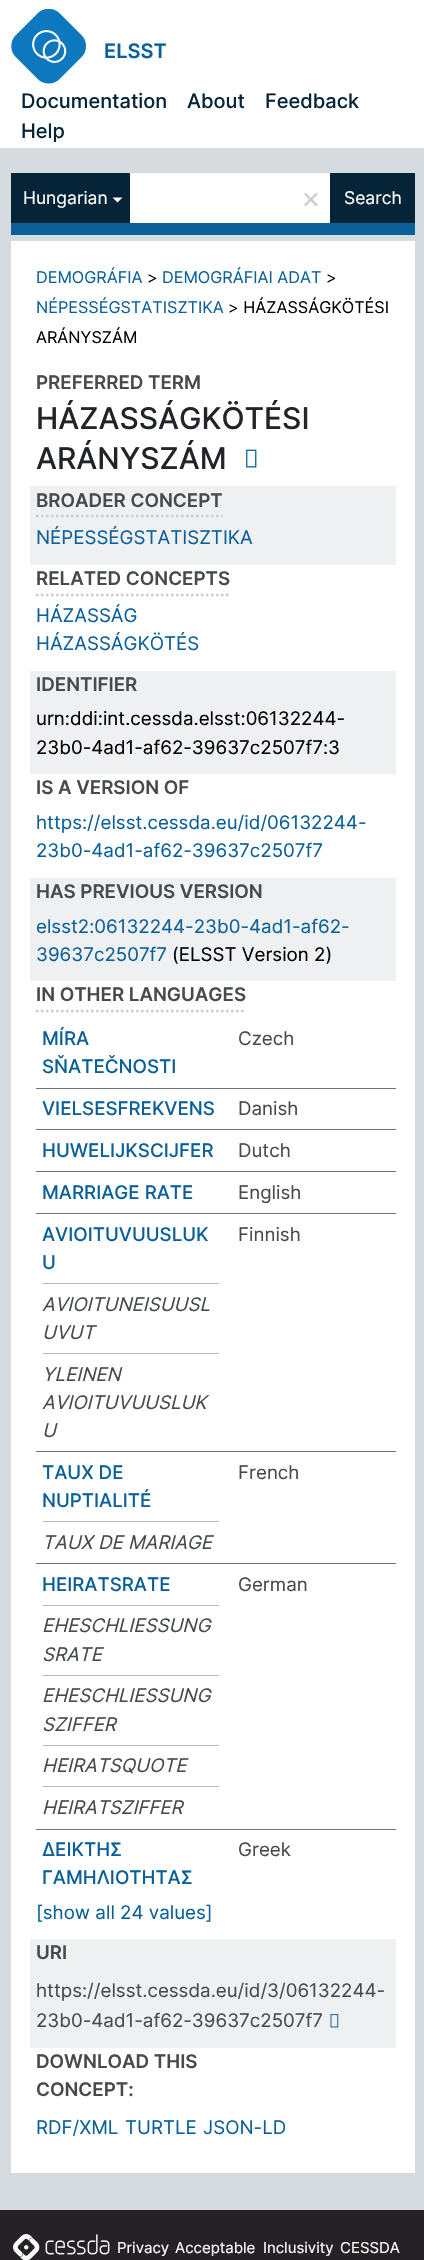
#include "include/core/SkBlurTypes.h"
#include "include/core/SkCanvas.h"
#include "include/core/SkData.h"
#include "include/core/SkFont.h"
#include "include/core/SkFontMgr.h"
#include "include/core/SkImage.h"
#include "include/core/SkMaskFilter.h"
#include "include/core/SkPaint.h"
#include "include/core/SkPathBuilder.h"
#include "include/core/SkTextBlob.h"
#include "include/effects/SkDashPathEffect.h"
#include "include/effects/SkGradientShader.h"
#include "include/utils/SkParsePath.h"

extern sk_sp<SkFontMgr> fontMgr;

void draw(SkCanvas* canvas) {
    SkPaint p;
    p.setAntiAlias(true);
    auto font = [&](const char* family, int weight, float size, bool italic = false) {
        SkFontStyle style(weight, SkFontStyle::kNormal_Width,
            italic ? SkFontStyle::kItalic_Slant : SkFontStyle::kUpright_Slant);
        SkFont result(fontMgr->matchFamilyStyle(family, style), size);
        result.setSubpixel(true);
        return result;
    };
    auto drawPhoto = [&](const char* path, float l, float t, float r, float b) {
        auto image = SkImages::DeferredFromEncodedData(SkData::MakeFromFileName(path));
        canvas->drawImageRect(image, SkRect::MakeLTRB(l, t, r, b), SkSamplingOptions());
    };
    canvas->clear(0xFFD5DBDE);
    p.setColor(0xFFFFFFFF);
    canvas->drawRect(SkRect::MakeLTRB(0, 0, 424, 148), p);
    drawPhoto("media/1.png", 11, 9, 86, 84);
    auto font1 = font("Inter", 600, 20);
    p.setColor(0xFF0B6099);
    canvas->drawString("ELSST", 104, 58, font1, p);
    auto font2 = font("Inter", 500, 20);
    p.setColor(0xFF052438);
    {
        const struct { const char* s; float x, y; } items[] = {
            {"Documentation", 21, 108},
            {"About", 187, 108},
            {"Feedback", 265, 108},
            {"Help", 21, 138},
        };
        for (auto [s, x, y] : items) {
            canvas->drawString(s, x, y, font2, p);
        }
    }
    canvas->drawRect(SkRect::MakeLTRB(11, 173, 130, 223), p);
    auto font3 = font("Inter", 400, 17.5f);
    p.setColor(0xFFFFFFFF);
    canvas->drawString("Hungarian", 23, 204, font3, p);
    canvas->drawPath(SkPathBuilder().moveTo(112.5f, 197.5f).lineTo(122.5f, 197.5f).lineTo(117.5f, 202.5f).close().detach(), p);
    canvas->drawRect(SkRect::MakeLTRB(130, 173, 330, 223), p);
    auto font4 = font("Inter", 400, 30);
    p.setColor(0xFFCCCCCC);
    canvas->drawString("×", 301, 208, font4, p);
    p.setColor(0xFF052438);
    canvas->drawRect(SkRect::MakeLTRB(330, 173, 415, 223), p);
    p.setColor(0xFFFFFFFF);
    canvas->drawString("Search", 344, 204, font3, p);
    p.setColor(0xFF0B6099);
    canvas->drawRect(SkRect::MakeLTRB(11, 223, 415, 235), p);
    p.setColor(0xFFFFFFFF);
    canvas->drawRect(SkRect::MakeLTRB(11, 241, 415, 2173), p);
    auto font5 = font("Inter", 400, 16.25f);
    p.setColor(0xFF0B6099);
    canvas->drawString("DEMOGRÁFIA", 36, 283, font5, p);
    p.setColor(0xFF000000);
    canvas->drawString(">", 147, 283, font5, p);
    p.setColor(0xFF0B6099);
    canvas->drawString("DEMOGRÁFIAI ADAT", 162, 283, font5, p);
    p.setColor(0xFF000000);
    canvas->drawString(">", 326, 283, font5, p);
    p.setColor(0xFF0B6099);
    canvas->drawString("NÉPESSÉGSTATISZTIKA", 36, 313, font5, p);
    p.setColor(0xFF000000);
    canvas->drawString("> HÁZASSÁGKÖTÉSI", 228, 313, font5, p);
    canvas->drawString("ARÁNYSZÁM", 36, 343, font5, p);
    auto font6 = font("Inter", 600, 18.75f);
    p.setColor(0xFF474B4F);
    canvas->drawString("PREFERRED TERM", 36, 389, font6, p);
    auto font7 = font("Inter", 500, 30);
    p.setColor(0xFF212529);
    canvas->drawString("HÁZASSÁGKÖTÉSI", 36, 429, font7, p);
    canvas->drawString("ARÁNYSZÁM", 36, 469, font7, p);
    drawPhoto("media/2.png", 246, 449, 257, 468);
    p.setColor(0xFFEFF0F1);
    canvas->drawRect(SkRect::MakeLTRB(30, 486, 396, 565), p);
    p.setStyle(SkPaint::kStroke_Style);
    p.setStrokeWidth(2.5f);
    p.setColor(0xFFCCCCCC);
    p.setPathEffect(SkDashPathEffect::Make({{2.5f, 2.5f}}, 0));
    canvas->drawPath(SkPathBuilder().moveTo(36, 516).lineTo(222.5f, 516).detach(), p);
    p.setPathEffect(nullptr);
    p.setStyle(SkPaint::kFill_Style);
    p.setColor(0xFF474B4F);
    canvas->drawString("BROADER CONCEPT", 36, 507, font6, p);
    auto font8 = font("Inter", 400, 18.75f);
    p.setColor(0xFF0B6099);
    canvas->drawString("NÉPESSÉGSTATISZTIKA", 36, 544, font8, p);
    p.setStyle(SkPaint::kStroke_Style);
    p.setColor(0xFFCCCCCC);
    p.setPathEffect(SkDashPathEffect::Make({{2.5f, 2.5f}}, 0));
    canvas->drawPath(SkPathBuilder().moveTo(36, 595).lineTo(230, 595).detach(), p);
    p.setPathEffect(nullptr);
    p.setStyle(SkPaint::kFill_Style);
    p.setColor(0xFF474B4F);
    canvas->drawString("RELATED CONCEPTS", 36, 585, font6, p);
    p.setColor(0xFF0B6099);
    canvas->drawString("HÁZASSÁG", 36, 622, font8, p);
    canvas->drawString("HÁZASSÁGKÖTÉS", 36, 650, font8, p);
    p.setColor(0xFFEFF0F1);
    canvas->drawRect(SkRect::MakeLTRB(30, 671, 396, 774), p);
    p.setColor(0xFF474B4F);
    canvas->drawString("IDENTIFIER", 36, 691, font6, p);
    p.setColor(0xFF000000);
    canvas->drawString("urn:ddi:int.cessda.elsst:06132244-", 36, 725, font8, p);
    canvas->drawString("23b0-4ad1-af62-39637c2507f7:3", 36, 754, font8, p);
    p.setColor(0xFF474B4F);
    canvas->drawString("IS A VERSION OF", 36, 794, font6, p);
    p.setColor(0xFF0B6099);
    canvas->drawString("https://elsst.cessda.eu/id/06132244-", 36, 829, font8, p);
    canvas->drawString("23b0-4ad1-af62-39637c2507f7", 36, 857, font8, p);
    p.setColor(0xFFEFF0F1);
    canvas->drawRect(SkRect::MakeLTRB(30, 878, 396, 981), p);
    p.setColor(0xFF474B4F);
    canvas->drawString("HAS PREVIOUS VERSION", 36, 898, font6, p);
    p.setColor(0xFF0B6099);
    canvas->drawString("elsst2:06132244-23b0-4ad1-af62-", 36, 933, font8, p);
    canvas->drawString("39637c2507f7", 36, 961, font8, p);
    p.setColor(0xFF000000);
    canvas->drawString("(ELSST Version 2)", 172, 961, font8, p);
    p.setStyle(SkPaint::kStroke_Style);
    p.setColor(0xFFCCCCCC);
    p.setPathEffect(SkDashPathEffect::Make({{2.5f, 2.5f}}, 0));
    canvas->drawPath(SkPathBuilder().moveTo(36, 1011).lineTo(246, 1011).detach(), p);
    p.setPathEffect(nullptr);
    p.setStyle(SkPaint::kFill_Style);
    p.setColor(0xFF474B4F);
    canvas->drawString("IN OTHER LANGUAGES", 36, 1001, font6, p);
    auto font9 = font("Inter", 500, 18.75f);
    p.setColor(0xFF0B6099);
    canvas->drawString("MÍRA", 42, 1045, font9, p);
    canvas->drawString("SŇATEČNOSTI", 42, 1073, font9, p);
    p.setColor(0xFF474B4F);
    canvas->drawString("Czech", 238, 1045, font8, p);
    p.setColor(0xFF6C757D);
    canvas->drawRect(SkRect::MakeLTRB(36, 1088, 396, 1089), p);
    p.setColor(0xFF0B6099);
    canvas->drawString("VIELSESFREKVENS", 42, 1115, font9, p);
    p.setColor(0xFF474B4F);
    canvas->drawString("Danish", 238, 1115, font8, p);
    p.setColor(0xFF6C757D);
    canvas->drawRect(SkRect::MakeLTRB(36, 1129, 396, 1130), p);
    p.setColor(0xFF0B6099);
    canvas->drawString("HUWELIJKSCIJFER", 42, 1157, font9, p);
    p.setColor(0xFF474B4F);
    canvas->drawString("Dutch", 238, 1157, font8, p);
    p.setColor(0xFF6C757D);
    canvas->drawRect(SkRect::MakeLTRB(36, 1171, 396, 1172), p);
    p.setColor(0xFF0B6099);
    canvas->drawString("MARRIAGE RATE", 42, 1199, font9, p);
    p.setColor(0xFF474B4F);
    canvas->drawString("English", 238, 1199, font8, p);
    p.setColor(0xFF6C757D);
    canvas->drawRect(SkRect::MakeLTRB(36, 1213, 396, 1214), p);
    p.setColor(0xFF0B6099);
    canvas->drawString("AVIOITUVUUSLUK", 42, 1241, font9, p);
    canvas->drawString("U", 42, 1269, font9, p);
    p.setColor(0xFF474B4F);
    canvas->drawString("Finnish", 238, 1241, font8, p);
    p.setColor(0xFFB3B8BD);
    canvas->drawRect(SkRect::MakeLTRB(43, 1283, 219, 1284), p);
    auto font10 = font("Inter", 400, 18.75f, true);
    p.setColor(0xFF474B4F);
    canvas->drawString("AVIOITUNEISUUSL", 42, 1311, font10, p);
    canvas->drawString("UVUT", 42, 1339, font10, p);
    p.setColor(0xFFB3B8BD);
    canvas->drawRect(SkRect::MakeLTRB(43, 1353, 219, 1354), p);
    p.setColor(0xFF474B4F);
    {
        const struct { const char* s; float x, y; } items[] = {
            {"YLEINEN", 42, 1381},
            {"AVIOITUVUUSLUK", 42, 1409},
            {"U", 42, 1437},
        };
        for (auto [s, x, y] : items) {
            canvas->drawString(s, x, y, font10, p);
        }
    }
    p.setColor(0xFF6C757D);
    canvas->drawRect(SkRect::MakeLTRB(36, 1451, 396, 1452), p);
    p.setColor(0xFF0B6099);
    canvas->drawString("TAUX DE", 42, 1479, font9, p);
    canvas->drawString("NUPTIALITÉ", 42, 1507, font9, p);
    p.setColor(0xFF474B4F);
    canvas->drawString("French", 238, 1479, font8, p);
    p.setColor(0xFFB3B8BD);
    canvas->drawRect(SkRect::MakeLTRB(43, 1521, 219, 1522), p);
    p.setColor(0xFF474B4F);
    canvas->drawString("TAUX DE MARIAGE", 42, 1549, font10, p);
    p.setColor(0xFF6C757D);
    canvas->drawRect(SkRect::MakeLTRB(36, 1563, 396, 1564), p);
    p.setColor(0xFF0B6099);
    canvas->drawString("HEIRATSRATE", 42, 1591, font9, p);
    p.setColor(0xFF474B4F);
    canvas->drawString("German", 238, 1591, font8, p);
    p.setColor(0xFFB3B8BD);
    canvas->drawRect(SkRect::MakeLTRB(43, 1605, 219, 1606), p);
    p.setColor(0xFF474B4F);
    canvas->drawString("EHESCHLIESSUNG", 42, 1632, font10, p);
    canvas->drawString("SRATE", 42, 1661, font10, p);
    p.setColor(0xFFB3B8BD);
    canvas->drawRect(SkRect::MakeLTRB(43, 1675, 219, 1676), p);
    p.setColor(0xFF474B4F);
    canvas->drawString("EHESCHLIESSUNG", 42, 1702, font10, p);
    canvas->drawString("SZIFFER", 42, 1731, font10, p);
    p.setColor(0xFFB3B8BD);
    canvas->drawRect(SkRect::MakeLTRB(43, 1745, 219, 1746), p);
    p.setColor(0xFF474B4F);
    canvas->drawString("HEIRATSQUOTE", 42, 1772, font10, p);
    p.setColor(0xFFB3B8BD);
    canvas->drawRect(SkRect::MakeLTRB(43, 1786, 219, 1787), p);
    p.setColor(0xFF474B4F);
    canvas->drawString("HEIRATSZIFFER", 42, 1814, font10, p);
    p.setColor(0xFF6C757D);
    canvas->drawRect(SkRect::MakeLTRB(36, 1829, 396, 1830), p);
    p.setColor(0xFF0B6099);
    canvas->drawString("ΔΕΙΚΤΗΣ", 42, 1856, font9, p);
    canvas->drawString("ΓΑΜΗΛΙΟΤΗΤΑΣ", 42, 1884, font9, p);
    p.setColor(0xFF474B4F);
    canvas->drawString("Greek", 238, 1856, font8, p);
    p.setColor(0xFF0B6099);
    canvas->drawString("[show all 24 values]", 36, 1919, font8, p);
    p.setColor(0xFFEFF0F1);
    canvas->drawRect(SkRect::MakeLTRB(30, 1939, 396, 2048), p);
    p.setColor(0xFF474B4F);
    canvas->drawString("URI", 36, 1959, font6, p);
    canvas->drawString("https://elsst.cessda.eu/id/3/06132244-", 36, 1997, font8, p);
    canvas->drawString("23b0-4ad1-af62-39637c2507f7", 36, 2027, font8, p);
    drawPhoto("media/3.png", 330, 2014, 339, 2028);
    canvas->drawString("DOWNLOAD THIS", 36, 2068, font6, p);
    canvas->drawString("CONCEPT:", 36, 2096, font6, p);
    p.setColor(0xFF0B6099);
    {
        const struct { const char* s; float x, y; } items[] = {
            {"RDF/XML", 36, 2134},
            {"TURTLE", 125, 2134},
            {"JSON-LD", 203, 2134},
        };
        for (auto [s, x, y] : items) {
            canvas->drawString(s, x, y, font8, p);
        }
    }
    p.setColor(0xFF262126);
    canvas->drawRect(SkRect::MakeLTRB(0, 2210, 424, 2260), p);
    drawPhoto("media/4.png", 13, 2234, 110, 2260);
    auto font11 = font("Inter", 400, 15);
    p.setColor(0xFFFFFFFF);
    {
        const struct { const char* s; float x, y; } items[] = {
            {"Privacy", 117, 2253},
            {"Acceptable", 175, 2253},
            {"Inclusivity", 263, 2253},
            {"CESSDA", 340, 2253},
        };
        for (auto [s, x, y] : items) {
            canvas->drawString(s, x, y, font11, p);
        }
    }
}
